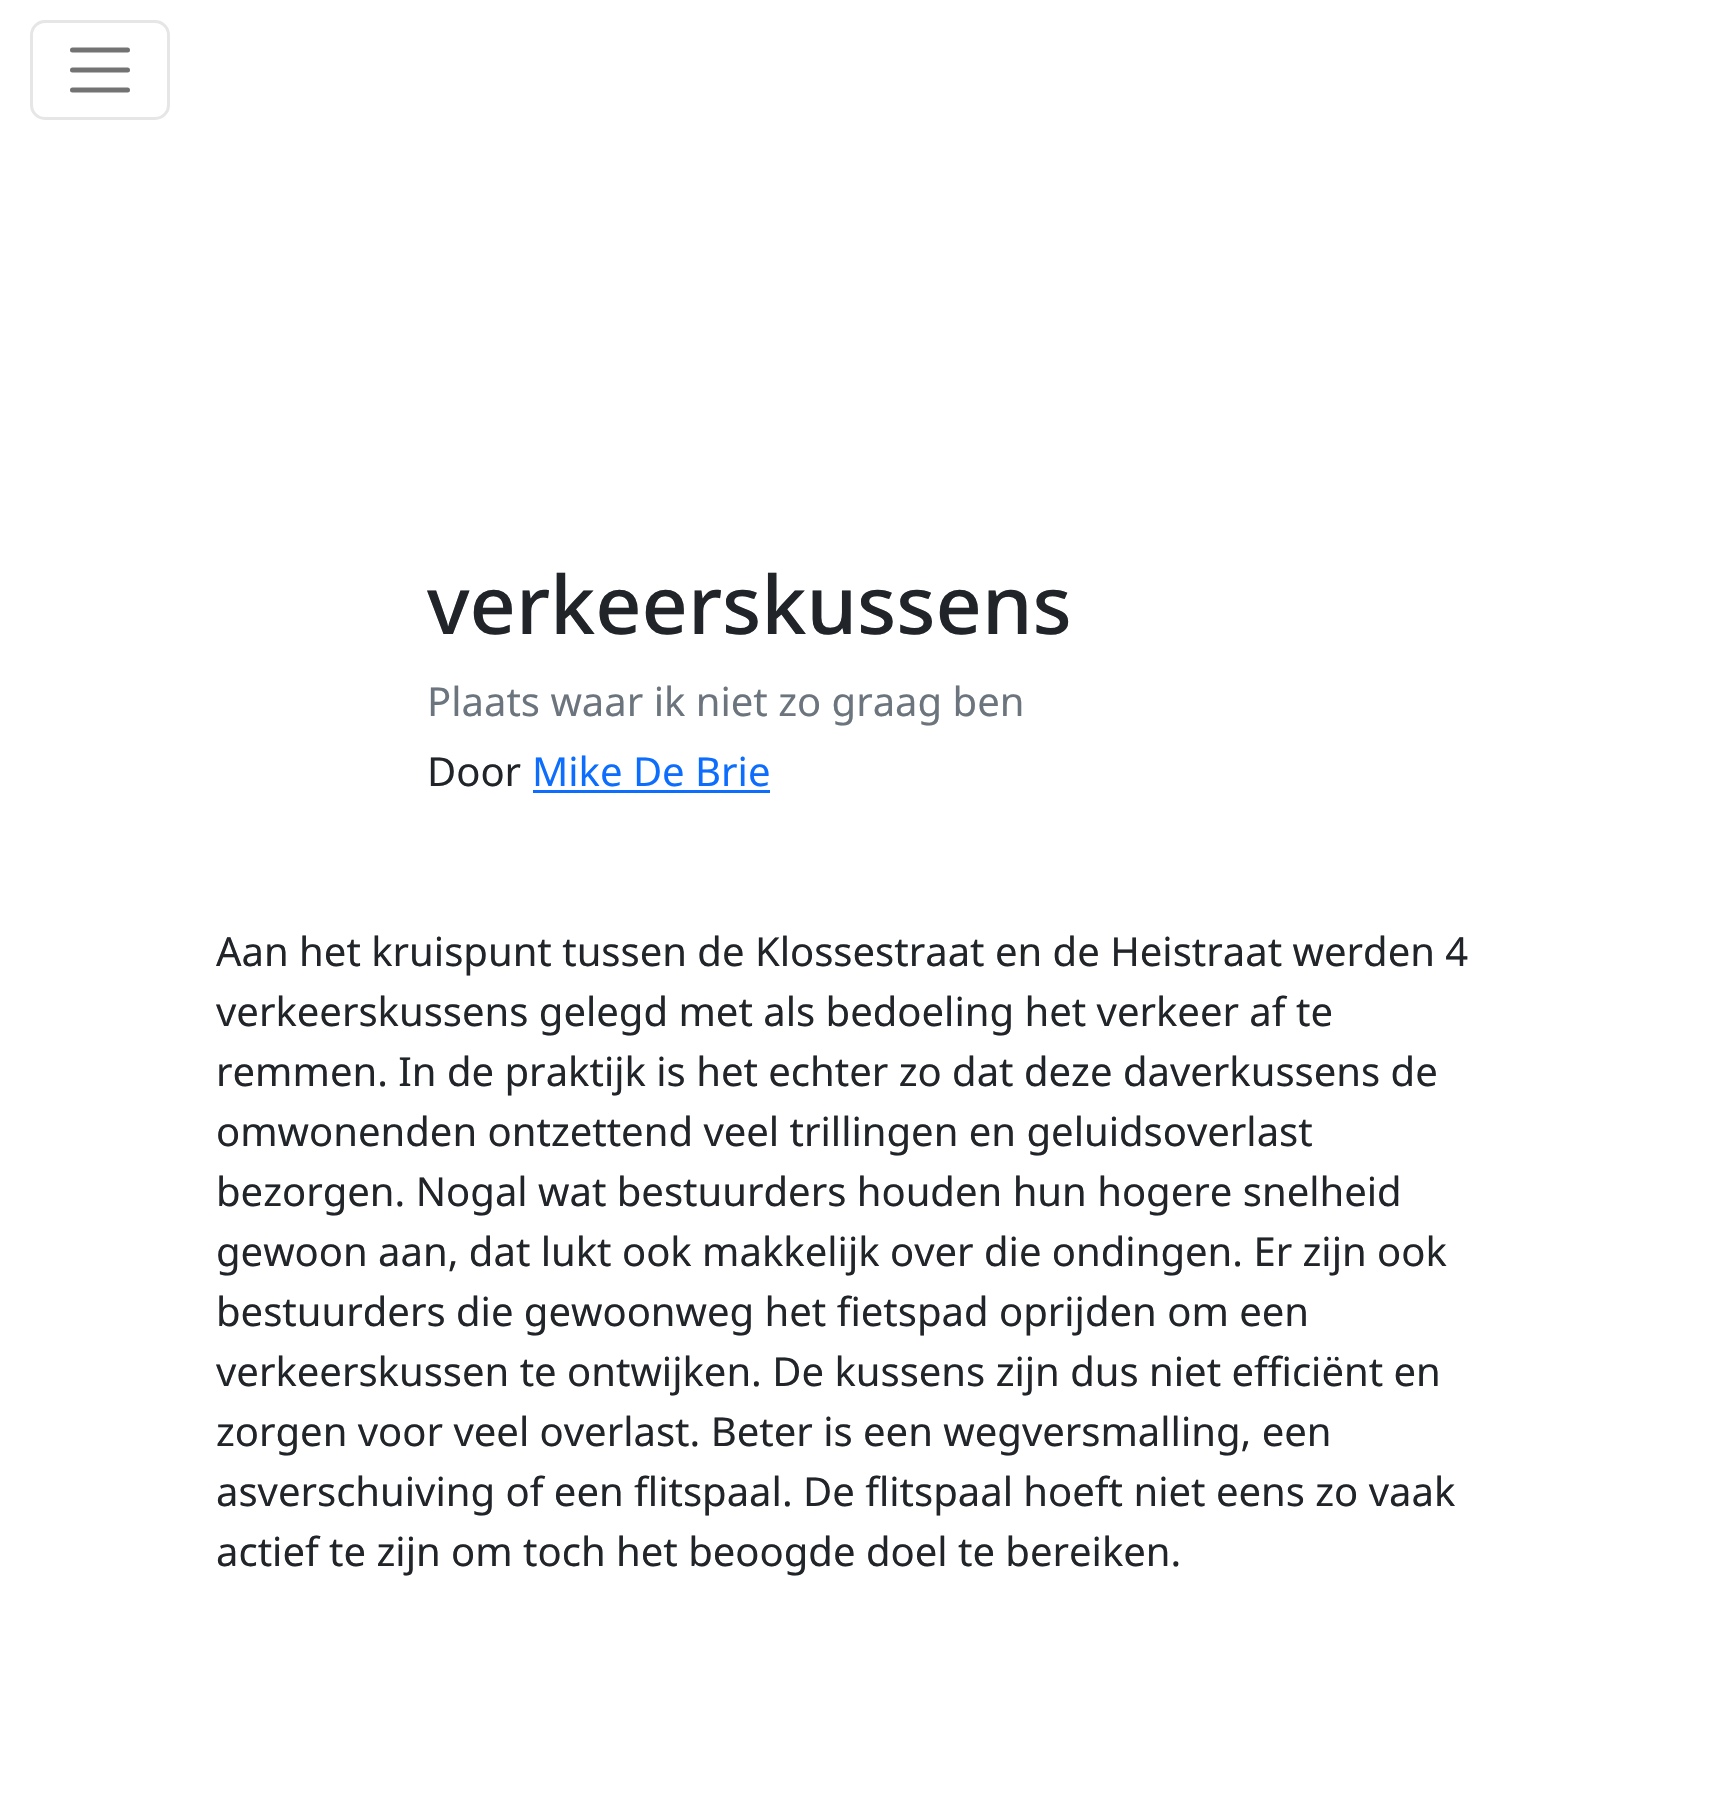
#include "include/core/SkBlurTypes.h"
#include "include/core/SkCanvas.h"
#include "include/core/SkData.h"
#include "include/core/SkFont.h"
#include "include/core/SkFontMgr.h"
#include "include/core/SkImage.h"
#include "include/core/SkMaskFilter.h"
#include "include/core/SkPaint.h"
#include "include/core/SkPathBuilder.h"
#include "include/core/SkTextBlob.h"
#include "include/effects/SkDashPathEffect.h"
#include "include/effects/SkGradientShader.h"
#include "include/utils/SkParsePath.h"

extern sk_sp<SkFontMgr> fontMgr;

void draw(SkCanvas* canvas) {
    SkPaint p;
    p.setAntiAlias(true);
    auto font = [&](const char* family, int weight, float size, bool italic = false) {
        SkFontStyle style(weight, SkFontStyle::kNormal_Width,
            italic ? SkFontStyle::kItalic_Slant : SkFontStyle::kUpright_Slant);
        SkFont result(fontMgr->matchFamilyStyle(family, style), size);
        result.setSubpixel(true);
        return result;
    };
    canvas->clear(0xFFFFFFFF);
    p.setStyle(SkPaint::kStroke_Style);
    p.setStrokeWidth(3);
    p.setColor(0xFFE6E6E6);
    canvas->drawRoundRect(SkRect::MakeLTRB(31.5f, 21.5f, 168.5f, 118.5f), 13.5f, 13.5f, p);
    p.setStrokeWidth(5);
    p.setStrokeCap(SkPaint::kRound_Cap);
    p.setColor(0xFF737373);
    canvas->drawPath(SkPathBuilder().moveTo(72.5f, 50).lineTo(127.5f, 50).moveTo(72.5f, 70).lineTo(127.5f, 70).moveTo(72.5f, 90).lineTo(127.5f, 90).detach(), p);
    auto font1 = font("Noto Sans", 500, 80.75f);
    p.setStyle(SkPaint::kFill_Style);
    p.setColor(0xFF212529);
    canvas->drawString("verkeerskussens", 427, 634, font1, p);
    auto font2 = font("Noto Sans", 400, 40);
    p.setColor(0xFF6C757D);
    canvas->drawString("Plaats waar ik niet zo graag ben", 427, 716, font2, p);
    p.setColor(0xFF212529);
    canvas->drawString("Door", 427, 786, font2, p);
    p.setColor(0xFF0D6EFD);
    canvas->drawString("Mike De Brie", 532, 786, font2, p);
    canvas->drawRect(SkRect::MakeLTRB(533, 790, 770, 793), p);
    p.setColor(0xFF212529);
    {
        const struct { const char* s; float x, y; } items[] = {
            {"Aan het kruispunt tussen de Klossestraat en de Heistraat werden 4", 216, 966},
            {"verkeerskussens gelegd met als bedoeling het verkeer af te", 216, 1026},
            {"remmen. In de praktijk is het echter zo dat deze daverkussens de", 216, 1086},
            {"omwonenden ontzettend veel trillingen en geluidsoverlast", 216, 1146},
            {"bezorgen. Nogal wat bestuurders houden hun hogere snelheid", 216, 1206},
            {"gewoon aan, dat lukt ook makkelijk over die ondingen. Er zijn ook", 216, 1266},
            {"bestuurders die gewoonweg het fietspad oprijden om een", 216, 1326},
            {"verkeerskussen te ontwijken. De kussens zijn dus niet efficiënt en", 216, 1386},
            {"zorgen voor veel overlast. Beter is een wegversmalling, een", 216, 1446},
            {"asverschuiving of een flitspaal. De flitspaal hoeft niet eens zo vaak", 216, 1506},
            {"actief te zijn om toch het beoogde doel te bereiken.", 216, 1566},
        };
        for (auto [s, x, y] : items) {
            canvas->drawString(s, x, y, font2, p);
        }
    }
}
